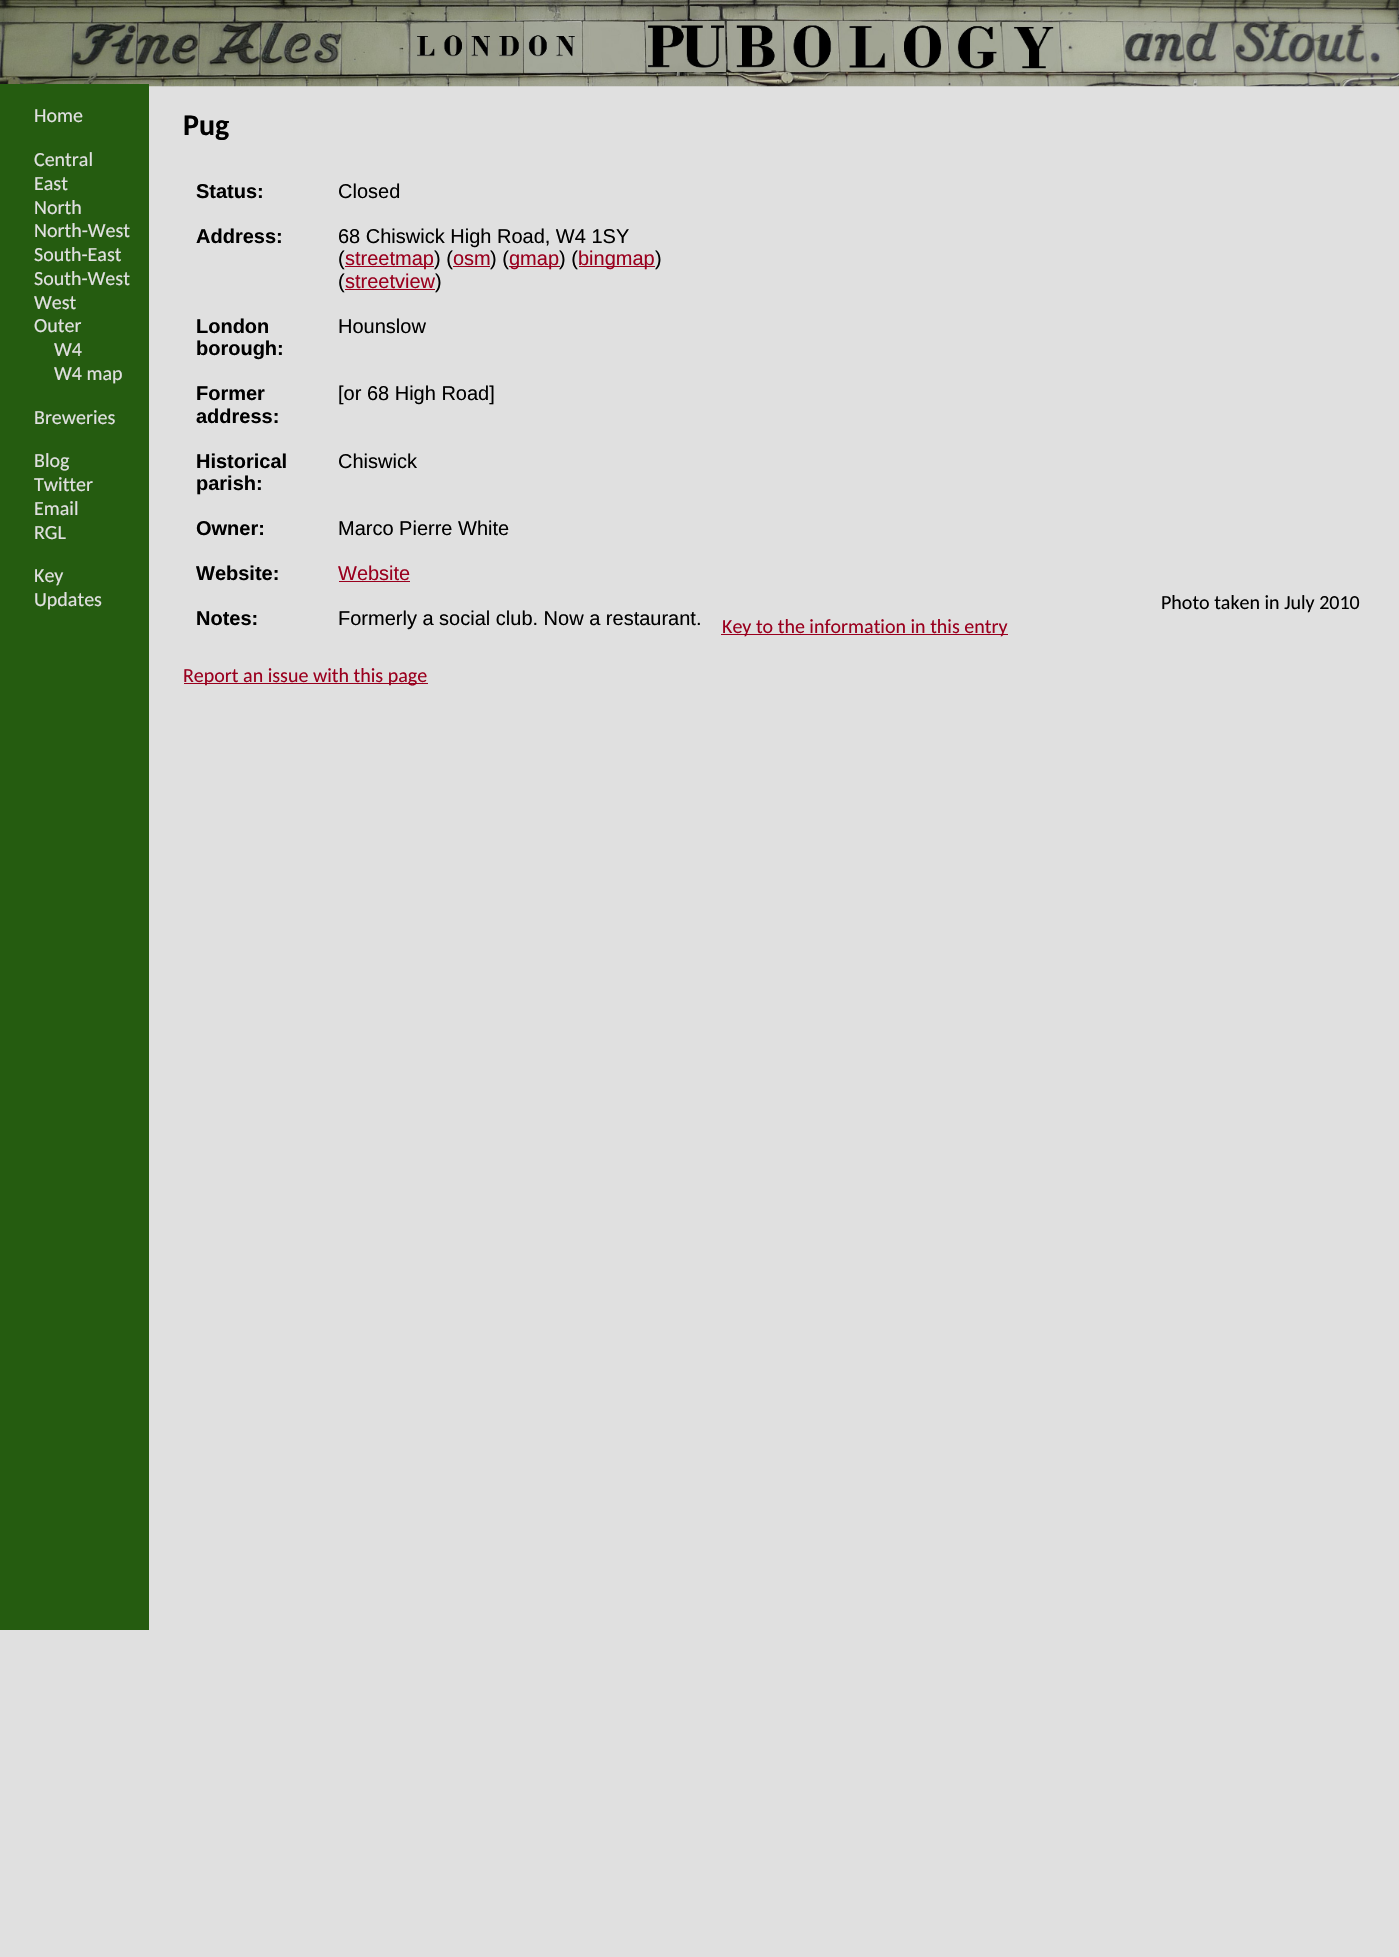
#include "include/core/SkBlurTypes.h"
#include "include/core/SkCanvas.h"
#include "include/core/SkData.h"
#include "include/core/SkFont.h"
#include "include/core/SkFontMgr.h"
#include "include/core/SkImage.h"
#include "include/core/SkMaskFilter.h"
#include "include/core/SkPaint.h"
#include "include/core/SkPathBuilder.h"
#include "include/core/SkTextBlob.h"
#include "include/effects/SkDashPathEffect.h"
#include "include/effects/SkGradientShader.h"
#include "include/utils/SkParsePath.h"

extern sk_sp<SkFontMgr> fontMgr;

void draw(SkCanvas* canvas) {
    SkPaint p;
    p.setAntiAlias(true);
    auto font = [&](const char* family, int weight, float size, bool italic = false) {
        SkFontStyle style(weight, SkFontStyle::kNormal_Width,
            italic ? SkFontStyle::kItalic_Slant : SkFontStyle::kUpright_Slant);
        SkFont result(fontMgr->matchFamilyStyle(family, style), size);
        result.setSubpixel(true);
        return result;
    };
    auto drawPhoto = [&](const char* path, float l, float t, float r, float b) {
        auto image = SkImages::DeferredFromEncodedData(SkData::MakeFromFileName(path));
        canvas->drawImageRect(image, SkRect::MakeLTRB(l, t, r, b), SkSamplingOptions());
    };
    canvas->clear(0xFFE0E0E0);
    drawPhoto("media/1.png", 0, 0, 1399, 87);
    p.setColor(0xFF255C10);
    canvas->drawRect(SkRect::MakeLTRB(0, 84, 149, 1630), p);
    auto font1 = font("Carlito", 400, 20);
    p.setColor(0xFFE0E0E0);
    {
        const struct { const char* s; float x, y; } items[] = {
            {"Home", 34, 122},
            {"Central", 34, 166},
            {"East", 34, 190},
            {"North", 34, 214},
            {"North-West", 34, 237},
            {"South-East", 34, 261},
            {"South-West", 34, 285},
            {"West", 34, 309},
            {"Outer", 34, 332},
            {"W4", 54, 356},
            {"W4 map", 54, 380},
            {"Breweries", 34, 424},
            {"Blog", 34, 467},
            {"Twitter", 34, 491},
            {"Email", 34, 515},
            {"RGL", 34, 539},
            {"Key", 34, 582},
            {"Updates", 34, 606},
        };
        for (auto [s, x, y] : items) {
            canvas->drawString(s, x, y, font1, p);
        }
    }
    auto font2 = font("Carlito", 700, 30);
    p.setColor(0xFF000000);
    canvas->drawString("Pug", 183, 135, font2, p);
    auto font3 = font("Liberation Sans", 700, 20);
    canvas->drawString("Status:", 196, 198, font3, p);
    auto font4 = font("Liberation Sans", 400, 20);
    canvas->drawString("Closed", 338, 198, font4, p);
    canvas->drawString("Address:", 196, 243, font3, p);
    canvas->drawString("68 Chiswick High Road, W4 1SY", 338, 243, font4, p);
    canvas->drawString("(", 338, 265, font4, p);
    p.setColor(0xFF9A001E);
    canvas->drawRect(SkRect::MakeLTRB(345, 266, 434, 267), p);
    canvas->drawString("streetmap", 345, 265, font4, p);
    p.setColor(0xFF000000);
    canvas->drawString(") (", 434, 265, font4, p);
    p.setColor(0xFF9A001E);
    canvas->drawString("osm", 453, 265, font4, p);
    canvas->drawRect(SkRect::MakeLTRB(453, 266, 490, 267), p);
    p.setColor(0xFF000000);
    canvas->drawString(") (", 490, 265, font4, p);
    p.setColor(0xFF9A001E);
    canvas->drawRect(SkRect::MakeLTRB(509, 266, 560, 267), p);
    canvas->drawString("gmap", 509, 265, font4, p);
    p.setColor(0xFF000000);
    canvas->drawString(") (", 559, 265, font4, p);
    p.setColor(0xFF9A001E);
    canvas->drawRect(SkRect::MakeLTRB(579, 266, 655, 267), p);
    canvas->drawString("bingmap", 578, 265, font4, p);
    p.setColor(0xFF000000);
    canvas->drawString(")", 655, 265, font4, p);
    canvas->drawString("(", 338, 288, font4, p);
    p.setColor(0xFF9A001E);
    canvas->drawString("streetview", 345, 288, font4, p);
    canvas->drawRect(SkRect::MakeLTRB(345, 289, 435, 290), p);
    p.setColor(0xFF000000);
    canvas->drawString(")", 435, 288, font4, p);
    canvas->drawString("London", 196, 333, font3, p);
    canvas->drawString("borough:", 196, 355, font3, p);
    canvas->drawString("Hounslow", 338, 333, font4, p);
    canvas->drawString("Former", 196, 400, font3, p);
    canvas->drawString("address:", 196, 423, font3, p);
    canvas->drawString("[or 68 High Road]", 338, 400, font4, p);
    canvas->drawString("Historical", 196, 468, font3, p);
    canvas->drawString("parish:", 196, 490, font3, p);
    canvas->drawString("Chiswick", 338, 468, font4, p);
    canvas->drawString("Owner:", 196, 535, font3, p);
    canvas->drawString("Marco Pierre White", 338, 535, font4, p);
    canvas->drawString("Website:", 196, 580, font3, p);
    p.setColor(0xFF9A001E);
    canvas->drawString("Website", 338, 580, font4, p);
    canvas->drawRect(SkRect::MakeLTRB(339, 581, 410, 582), p);
    p.setColor(0xFF000000);
    canvas->drawString("Notes:", 196, 625, font3, p);
    canvas->drawString("Formerly a social club. Now a restaurant.", 338, 625, font4, p);
    canvas->drawString("Photo taken in July 2010", 1161, 609, font1, p);
    p.setColor(0xFF9A001E);
    canvas->drawRect(SkRect::MakeLTRB(721, 634, 1008, 635), p);
    canvas->drawString("Key to the information in this entry", 722, 633, font1, p);
    canvas->drawRect(SkRect::MakeLTRB(184, 683, 428, 684), p);
    canvas->drawString("Report an issue with this page", 183, 682, font1, p);
}
